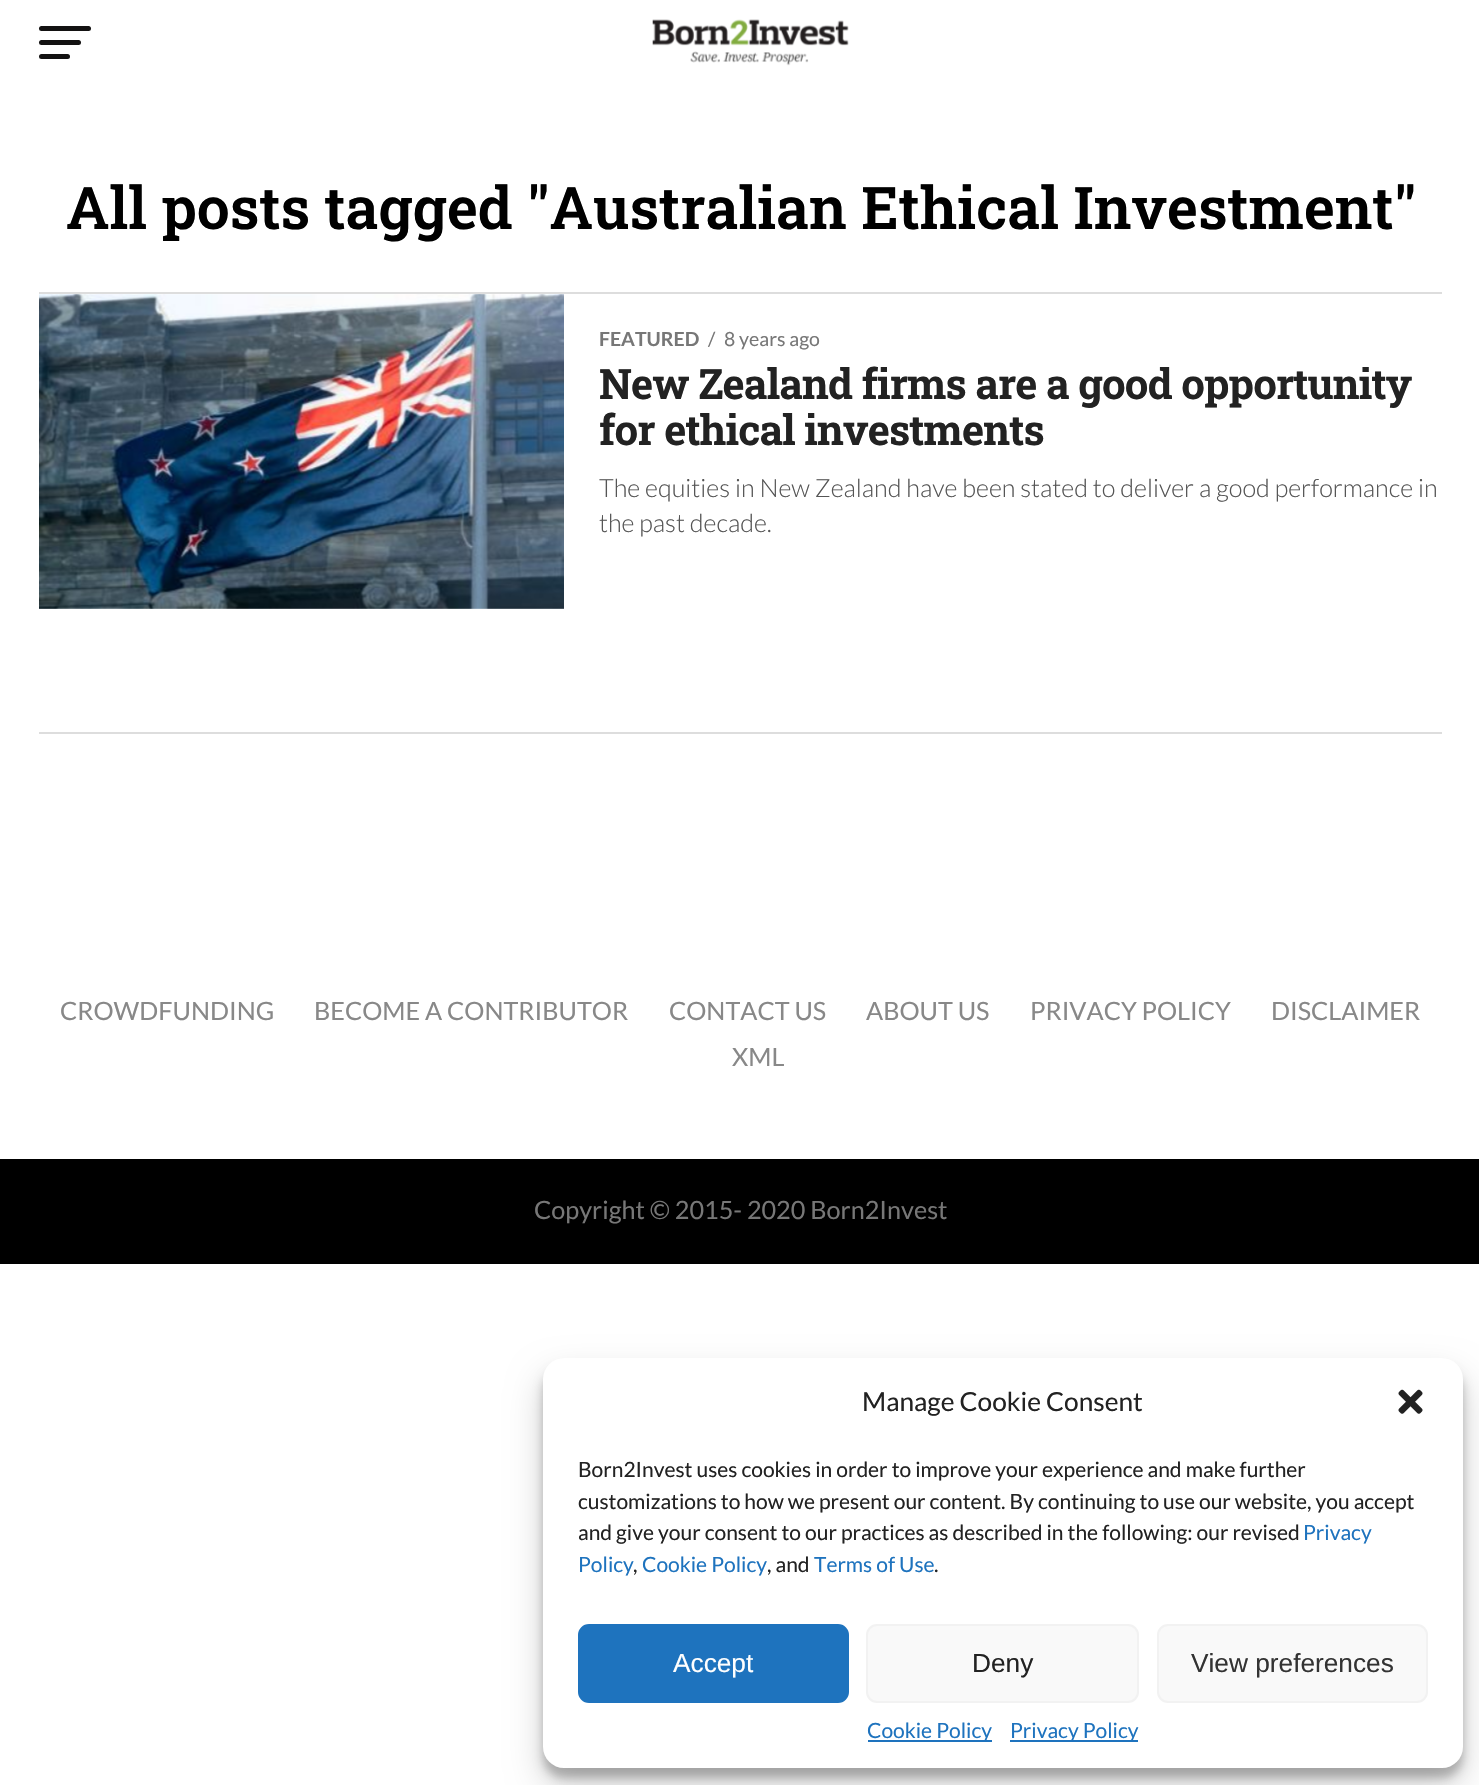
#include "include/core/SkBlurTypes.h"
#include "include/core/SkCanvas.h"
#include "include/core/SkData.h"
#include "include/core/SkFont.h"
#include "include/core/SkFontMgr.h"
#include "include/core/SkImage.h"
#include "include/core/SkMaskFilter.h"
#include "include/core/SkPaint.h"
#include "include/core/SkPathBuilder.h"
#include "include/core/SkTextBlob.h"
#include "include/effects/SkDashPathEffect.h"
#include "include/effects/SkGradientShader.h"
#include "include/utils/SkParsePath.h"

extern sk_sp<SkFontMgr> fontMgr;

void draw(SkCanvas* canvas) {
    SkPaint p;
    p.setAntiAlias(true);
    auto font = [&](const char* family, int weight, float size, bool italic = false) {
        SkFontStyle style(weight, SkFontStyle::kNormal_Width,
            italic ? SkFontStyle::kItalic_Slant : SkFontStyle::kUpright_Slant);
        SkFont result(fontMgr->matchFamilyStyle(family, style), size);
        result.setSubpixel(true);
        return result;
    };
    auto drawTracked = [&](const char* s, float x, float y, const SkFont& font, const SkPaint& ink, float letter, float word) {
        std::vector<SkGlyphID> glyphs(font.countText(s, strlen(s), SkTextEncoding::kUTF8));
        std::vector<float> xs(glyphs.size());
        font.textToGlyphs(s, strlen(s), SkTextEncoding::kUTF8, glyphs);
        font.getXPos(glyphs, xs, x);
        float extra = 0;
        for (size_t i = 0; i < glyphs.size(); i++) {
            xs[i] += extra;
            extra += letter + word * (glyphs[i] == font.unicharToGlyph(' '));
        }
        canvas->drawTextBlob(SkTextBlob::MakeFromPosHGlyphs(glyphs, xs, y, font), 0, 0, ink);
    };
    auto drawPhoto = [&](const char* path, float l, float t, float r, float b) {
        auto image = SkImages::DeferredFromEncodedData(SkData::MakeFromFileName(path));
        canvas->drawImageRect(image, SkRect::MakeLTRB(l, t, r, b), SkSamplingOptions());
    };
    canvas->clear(0xFFFFFFFF);
    p.setColor(0xFF131212);
    canvas->drawRoundRect(SkRect::MakeLTRB(39, 26, 91, 31), 2.5f, 2.5f, p);
    canvas->drawRoundRect(SkRect::MakeLTRB(39, 40, 81, 45), 2.5f, 2.5f, p);
    canvas->drawRoundRect(SkRect::MakeLTRB(39, 54, 70, 59), 2.5f, 2.5f, p);
    drawPhoto("media/1.png", 652, 19, 849, 66);
    auto font1 = font("Roboto Slab", 600, 58.8f);
    p.setColor(0xFF000000);
    canvas->drawString("All posts tagged \"Australian Ethical Investment\"", 66, 229, font1, p);
    p.setColor(0xFFDDDDDD);
    canvas->drawRect(SkRect::MakeLTRB(39, 292, 1442, 294), p);
    drawPhoto("media/2.png", 39, 294, 564, 609);
    auto font2 = font("Lato", 700, 19.5f);
    p.setColor(0xFF777777);
    canvas->drawString("FEATURED", 599, 346, font2, p);
    auto font3 = font("Lato", 400, 19.5f);
    canvas->drawString("/", 708, 346, font3, p);
    canvas->drawString("8 years ago", 724, 346, font3, p);
    auto font4 = font("Roboto Slab", 700, 42);
    p.setColor(0xFF222222);
    drawTracked("New Zealand firms are a good opportunity", 599, 399, font4, p, -0.85f, 0);
    drawTracked("for ethical investments", 599, 445, font4, p, -0.85f, 0);
    auto font5 = font("Lato", 300, 25.2f);
    p.setColor(0xFF555555);
    canvas->drawString("The equities in New Zealand have been stated to deliver a good performance in", 599, 497, font5, p);
    canvas->drawString("the past decade.", 599, 532, font5, p);
    p.setColor(0xFFDDDDDD);
    canvas->drawRect(SkRect::MakeLTRB(39, 732, 1442, 734), p);
    auto font6 = font("Lato", 400, 25.2f);
    p.setColor(0xFF888888);
    {
        const struct { const char* s; float x, y; } items[] = {
            {"CROWDFUNDING", 60, 1020},
            {"BECOME A CONTRIBUTOR", 314, 1020},
            {"CONTACT US", 669, 1020},
            {"ABOUT US", 866, 1020},
            {"PRIVACY POLICY", 1030, 1020},
            {"DISCLAIMER", 1271, 1020},
            {"XML", 732, 1066},
        };
        for (auto [s, x, y] : items) {
            canvas->drawString(s, x, y, font6, p);
        }
    }
    p.setColor(0xFF000000);
    canvas->drawRect(SkRect::MakeLTRB(0, 1159, 1479, 1264), p);
    p.setColor(0xFF777777);
    canvas->drawString("Copyright © 2015- 2020 Born2Invest", 534, 1219, font6, p);
    p.setColor(0x3B000000);
    p.setMaskFilter(SkMaskFilter::MakeBlur(kNormal_SkBlurStyle, 5));
    canvas->drawRoundRect(SkRect::MakeLTRB(543, 1369, 1463, 1778), 21, 21, p);
    p.setMaskFilter(nullptr);
    p.setColor(0x30000000);
    p.setMaskFilter(SkMaskFilter::MakeBlur(kNormal_SkBlurStyle, 17.5f));
    canvas->drawRoundRect(SkRect::MakeLTRB(543, 1376, 1463, 1785), 21, 21, p);
    p.setMaskFilter(nullptr);
    p.setColor(0xFFFFFFFF);
    canvas->drawRoundRect(SkRect::MakeLTRB(543, 1358, 1463, 1768), 21, 21, p);
    auto font7 = font("Lato", 400, 26.25f);
    p.setColor(0xFF222222);
    canvas->drawString("Manage Cookie Consent", 862, 1411, font7, p);
    drawPhoto("media/3.png", 1398, 1389, 1423, 1414);
    auto font8 = font("Lato", 400, 21);
    {
        const struct { const char* s; float x, y; } items[] = {
            {"Born2Invest uses cookies in order to improve your experience and make further", 578, 1477},
            {"customizations to how we present our content. By continuing to use our website, you accept", 578, 1509},
            {"and give your consent to our practices as described in the following: our revised", 578, 1540},
        };
        for (auto [s, x, y] : items) {
            canvas->drawString(s, x, y, font8, p);
        }
    }
    p.setColor(0xFF1E73BE);
    canvas->drawString("Privacy", 1303, 1540, font8, p);
    canvas->drawString("Policy", 578, 1572, font8, p);
    p.setColor(0xFF222222);
    canvas->drawString(",", 633, 1572, font8, p);
    p.setColor(0xFF1E73BE);
    canvas->drawString("Cookie Policy", 642, 1572, font8, p);
    p.setColor(0xFF222222);
    canvas->drawString(", and", 767, 1572, font8, p);
    p.setColor(0xFF1E73BE);
    canvas->drawString("Terms of Use", 814, 1572, font8, p);
    p.setColor(0xFF222222);
    canvas->drawString(".", 934, 1572, font8, p);
    p.setColor(0xFF1E73BE);
    canvas->drawRoundRect(SkRect::MakeLTRB(579, 1625, 848, 1702), 10, 10, p);
    p.setStyle(SkPaint::kStroke_Style);
    p.setStrokeWidth(2);
    canvas->drawRoundRect(SkRect::MakeLTRB(579, 1625, 848, 1702), 10, 10, p);
    auto font9 = font("Liberation Sans", 400, 26.25f);
    p.setStyle(SkPaint::kFill_Style);
    p.setColor(0xFFFFFFFF);
    canvas->drawString("Accept", 673, 1672, font9, p);
    p.setColor(0xFFF9F9F9);
    canvas->drawRoundRect(SkRect::MakeLTRB(867, 1625, 1138, 1702), 10, 10, p);
    p.setStyle(SkPaint::kStroke_Style);
    p.setColor(0xFFF2F2F2);
    canvas->drawRoundRect(SkRect::MakeLTRB(867, 1625, 1138, 1702), 10, 10, p);
    p.setStyle(SkPaint::kFill_Style);
    p.setColor(0xFF222222);
    canvas->drawString("Deny", 972, 1672, font9, p);
    p.setColor(0xFFF9F9F9);
    canvas->drawRoundRect(SkRect::MakeLTRB(1158, 1625, 1427, 1702), 10, 10, p);
    p.setStyle(SkPaint::kStroke_Style);
    p.setColor(0xFFF2F2F2);
    canvas->drawRoundRect(SkRect::MakeLTRB(1158, 1625, 1427, 1702), 10, 10, p);
    p.setStyle(SkPaint::kFill_Style);
    p.setColor(0xFF333333);
    canvas->drawString("View preferences", 1191, 1672, font9, p);
    p.setColor(0xFF1E73BE);
    canvas->drawRect(SkRect::MakeLTRB(868, 1740, 992, 1742), p);
    canvas->drawString("Cookie Policy", 867, 1738, font8, p);
    canvas->drawRect(SkRect::MakeLTRB(1010, 1740, 1138, 1742), p);
    canvas->drawString("Privacy Policy", 1010, 1738, font8, p);
}
